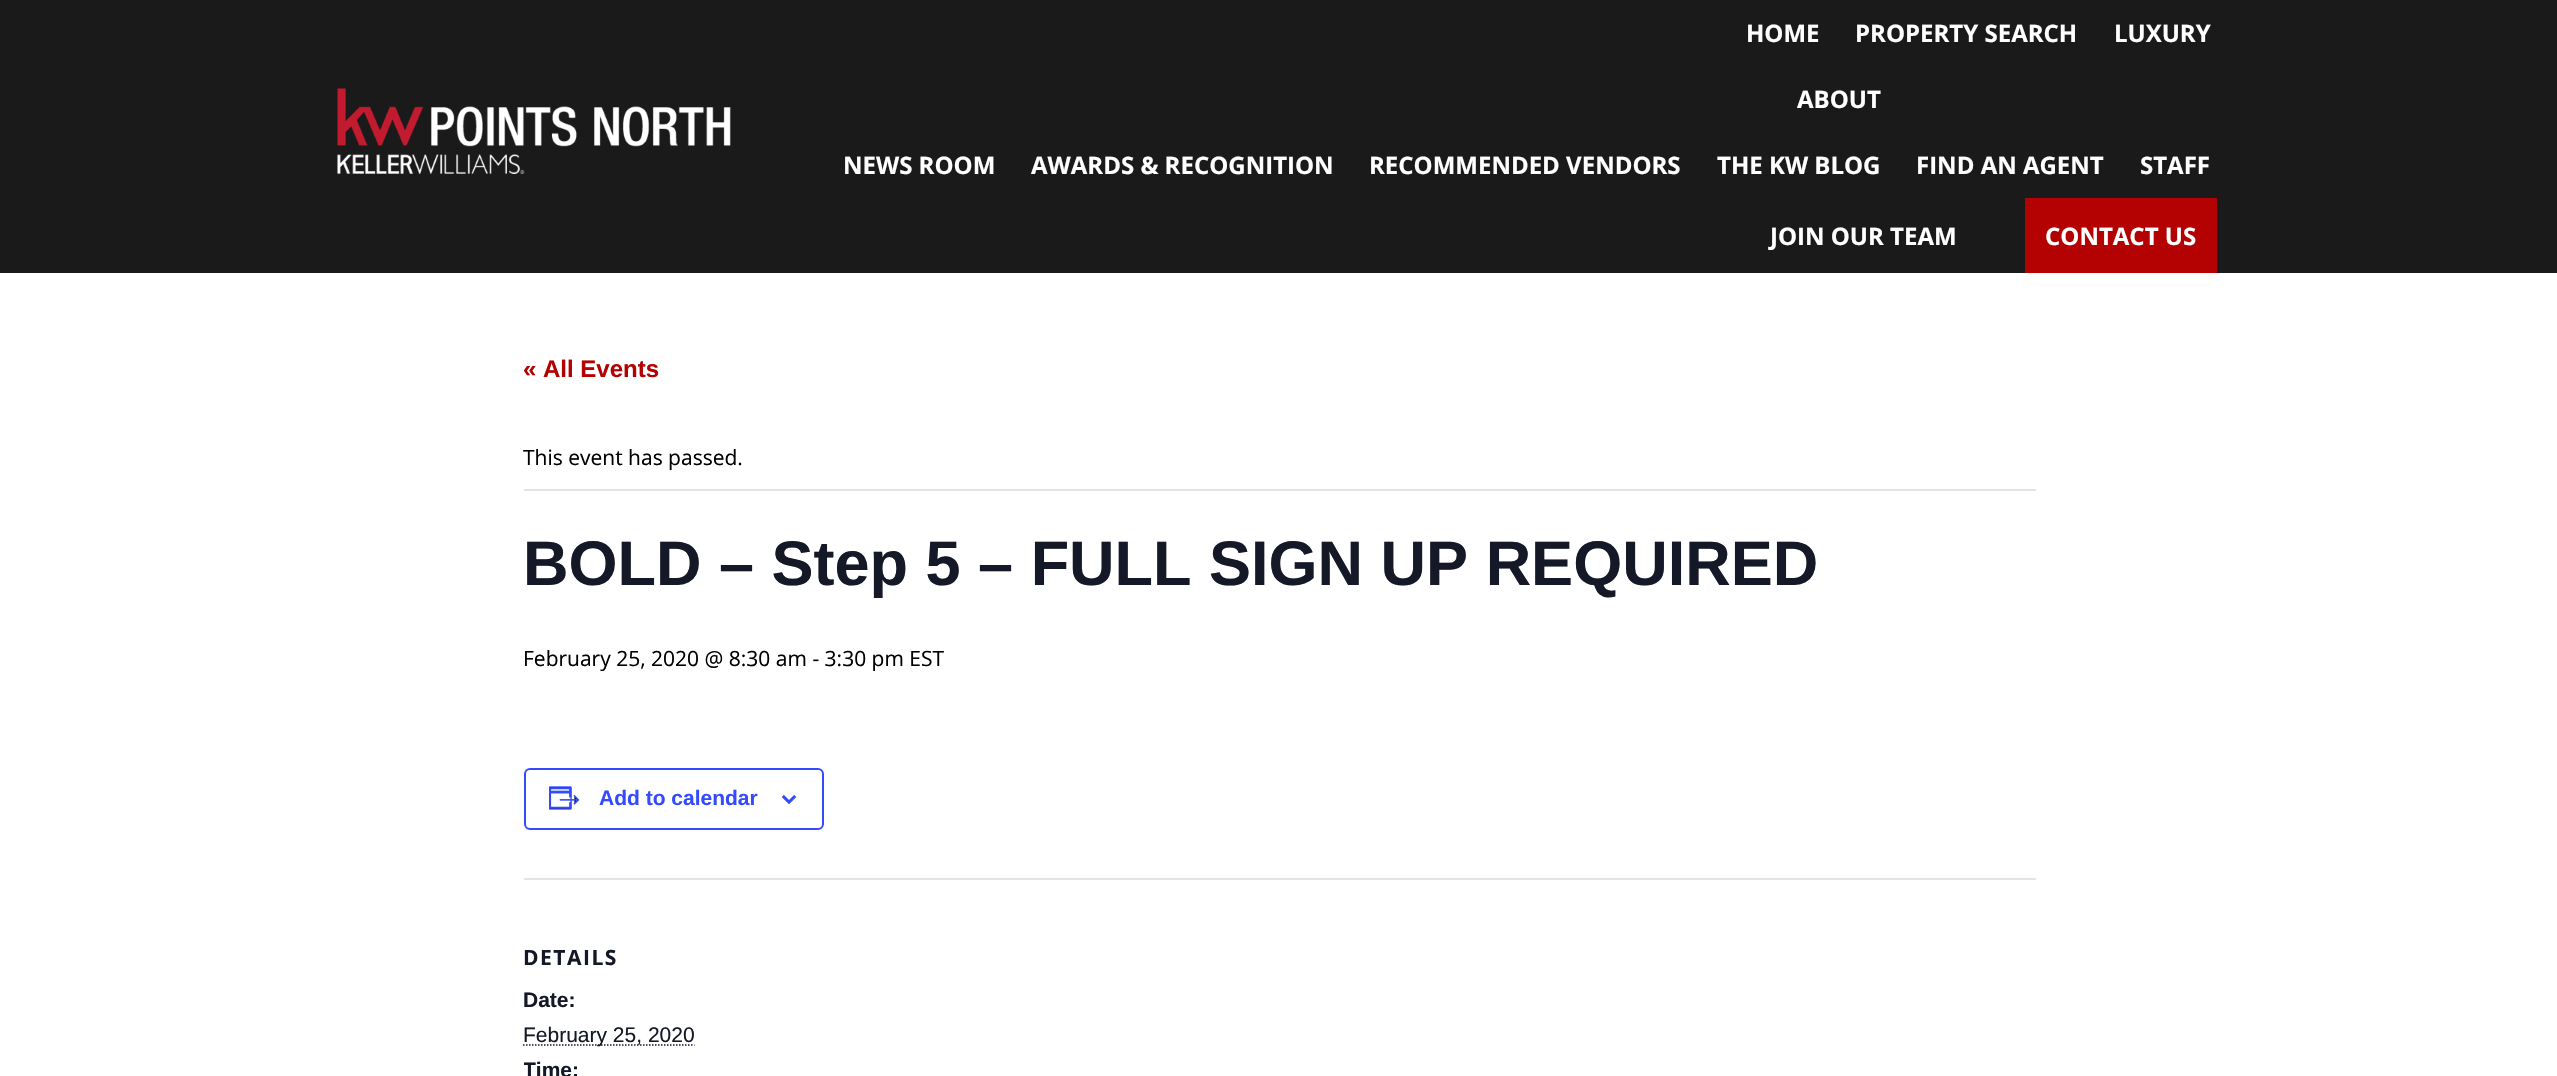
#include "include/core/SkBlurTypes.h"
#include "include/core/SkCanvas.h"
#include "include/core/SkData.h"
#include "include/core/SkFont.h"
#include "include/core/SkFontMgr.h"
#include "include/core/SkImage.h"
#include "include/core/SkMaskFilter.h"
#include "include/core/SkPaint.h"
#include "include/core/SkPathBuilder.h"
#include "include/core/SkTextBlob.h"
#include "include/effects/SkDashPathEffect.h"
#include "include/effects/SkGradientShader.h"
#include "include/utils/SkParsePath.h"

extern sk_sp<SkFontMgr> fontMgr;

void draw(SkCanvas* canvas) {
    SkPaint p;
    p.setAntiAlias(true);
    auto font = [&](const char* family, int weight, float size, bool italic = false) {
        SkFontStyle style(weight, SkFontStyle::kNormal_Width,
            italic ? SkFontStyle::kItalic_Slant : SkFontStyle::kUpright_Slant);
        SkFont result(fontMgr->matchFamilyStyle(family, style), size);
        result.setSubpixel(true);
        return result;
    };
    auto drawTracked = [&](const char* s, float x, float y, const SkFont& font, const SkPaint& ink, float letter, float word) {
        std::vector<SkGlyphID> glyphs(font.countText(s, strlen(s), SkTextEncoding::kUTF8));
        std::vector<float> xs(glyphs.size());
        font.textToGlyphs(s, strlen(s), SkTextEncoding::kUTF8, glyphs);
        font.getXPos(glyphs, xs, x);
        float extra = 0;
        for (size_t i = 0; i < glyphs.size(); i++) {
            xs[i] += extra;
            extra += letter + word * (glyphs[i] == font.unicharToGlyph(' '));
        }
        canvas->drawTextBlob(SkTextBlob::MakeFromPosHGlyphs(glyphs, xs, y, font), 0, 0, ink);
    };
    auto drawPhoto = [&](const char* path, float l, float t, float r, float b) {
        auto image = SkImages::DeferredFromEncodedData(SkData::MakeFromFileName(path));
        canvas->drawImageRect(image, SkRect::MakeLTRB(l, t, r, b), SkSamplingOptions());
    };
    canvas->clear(0xFFFFFFFF);
    p.setColor(0xFF1A1A1A);
    canvas->drawRect(SkRect::MakeLTRB(0, 0, 2557, 273), p);
    drawPhoto("media/1.png", 337, 88, 731, 174);
    auto font1 = font("Open Sans", 700, 24);
    p.setColor(0xFFFFFFFF);
    {
        const struct { const char* s; float x, y; } items[] = {
            {"HOME", 1746, 42},
            {"PROPERTY SEARCH", 1855, 42},
            {"LUXURY", 2114, 42},
            {"ABOUT", 1797, 108},
            {"NEWS ROOM", 843, 174},
            {"AWARDS & RECOGNITION", 1031, 174},
            {"RECOMMENDED VENDORS", 1369, 174},
            {"THE KW BLOG", 1717, 174},
            {"FIND AN AGENT", 1916, 174},
            {"STAFF", 2140, 174},
            {"JOIN OUR TEAM", 1770, 245},
        };
        for (auto [s, x, y] : items) {
            canvas->drawString(s, x, y, font1, p);
        }
    }
    p.setColor(0xFFB40101);
    canvas->drawRect(SkRect::MakeLTRB(2025, 198, 2217, 273), p);
    p.setColor(0xFFFFFFFF);
    canvas->drawString("CONTACT US", 2045, 245, font1, p);
    auto font2 = font("Liberation Sans", 700, 24);
    p.setColor(0xFFB40101);
    canvas->drawString("« All Events", 523, 377, font2, p);
    p.setColor(0xFFE4E4E4);
    canvas->drawRect(SkRect::MakeLTRB(524, 489, 2036, 491), p);
    auto font3 = font("Open Sans", 400, 21);
    p.setColor(0xFF000000);
    canvas->drawString("This event has passed.", 523, 465, font3, p);
    auto font4 = font("Liberation Sans", 700, 63);
    p.setColor(0xFF141827);
    canvas->drawString("BOLD – Step 5 – FULL SIGN UP REQUIRED", 523, 585, font4, p);
    p.setColor(0xFF000000);
    canvas->drawString("February 25, 2020 @ 8:30 am - 3:30 pm EST", 523, 666, font3, p);
    p.setStyle(SkPaint::kStroke_Style);
    p.setStrokeWidth(2);
    p.setColor(0xFF334AFF);
    canvas->drawRoundRect(SkRect::MakeLTRB(525, 769, 823, 829), 5, 5, p);
    drawPhoto("media/2.png", 549, 786, 580, 810);
    auto font5 = font("Liberation Sans", 700, 21);
    p.setStyle(SkPaint::kFill_Style);
    canvas->drawString("Add to calendar", 599, 805, font5, p);
    drawPhoto("media/3.png", 782, 795, 797, 804);
    p.setColor(0xFFE4E4E4);
    canvas->drawRect(SkRect::MakeLTRB(524, 878, 2036, 880), p);
    auto font6 = font("Open Sans", 700, 21);
    p.setColor(0xFF141827);
    drawTracked("DETAILS", 523, 965, font6, p, 1.5f, 0);
    canvas->drawString("Date:", 523, 1007, font5, p);
    p.setStyle(SkPaint::kStroke_Style);
    p.setStrokeWidth(1.5f);
    p.setPathEffect(SkDashPathEffect::Make({{1.5f, 1.5f}}, 0));
    canvas->drawPath(SkPathBuilder().moveTo(523, 1045).lineTo(694.5f, 1045).detach(), p);
    p.setPathEffect(nullptr);
    auto font7 = font("Liberation Sans", 400, 21);
    p.setStyle(SkPaint::kFill_Style);
    canvas->drawString("February 25, 2020", 523, 1042, font7, p);
    canvas->save();
    canvas->clipRect(SkRect::MakeLTRB(524, 720, 2036, 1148));
    canvas->drawString("Time:", 523, 1077, font5, p);
    canvas->restore();
}
